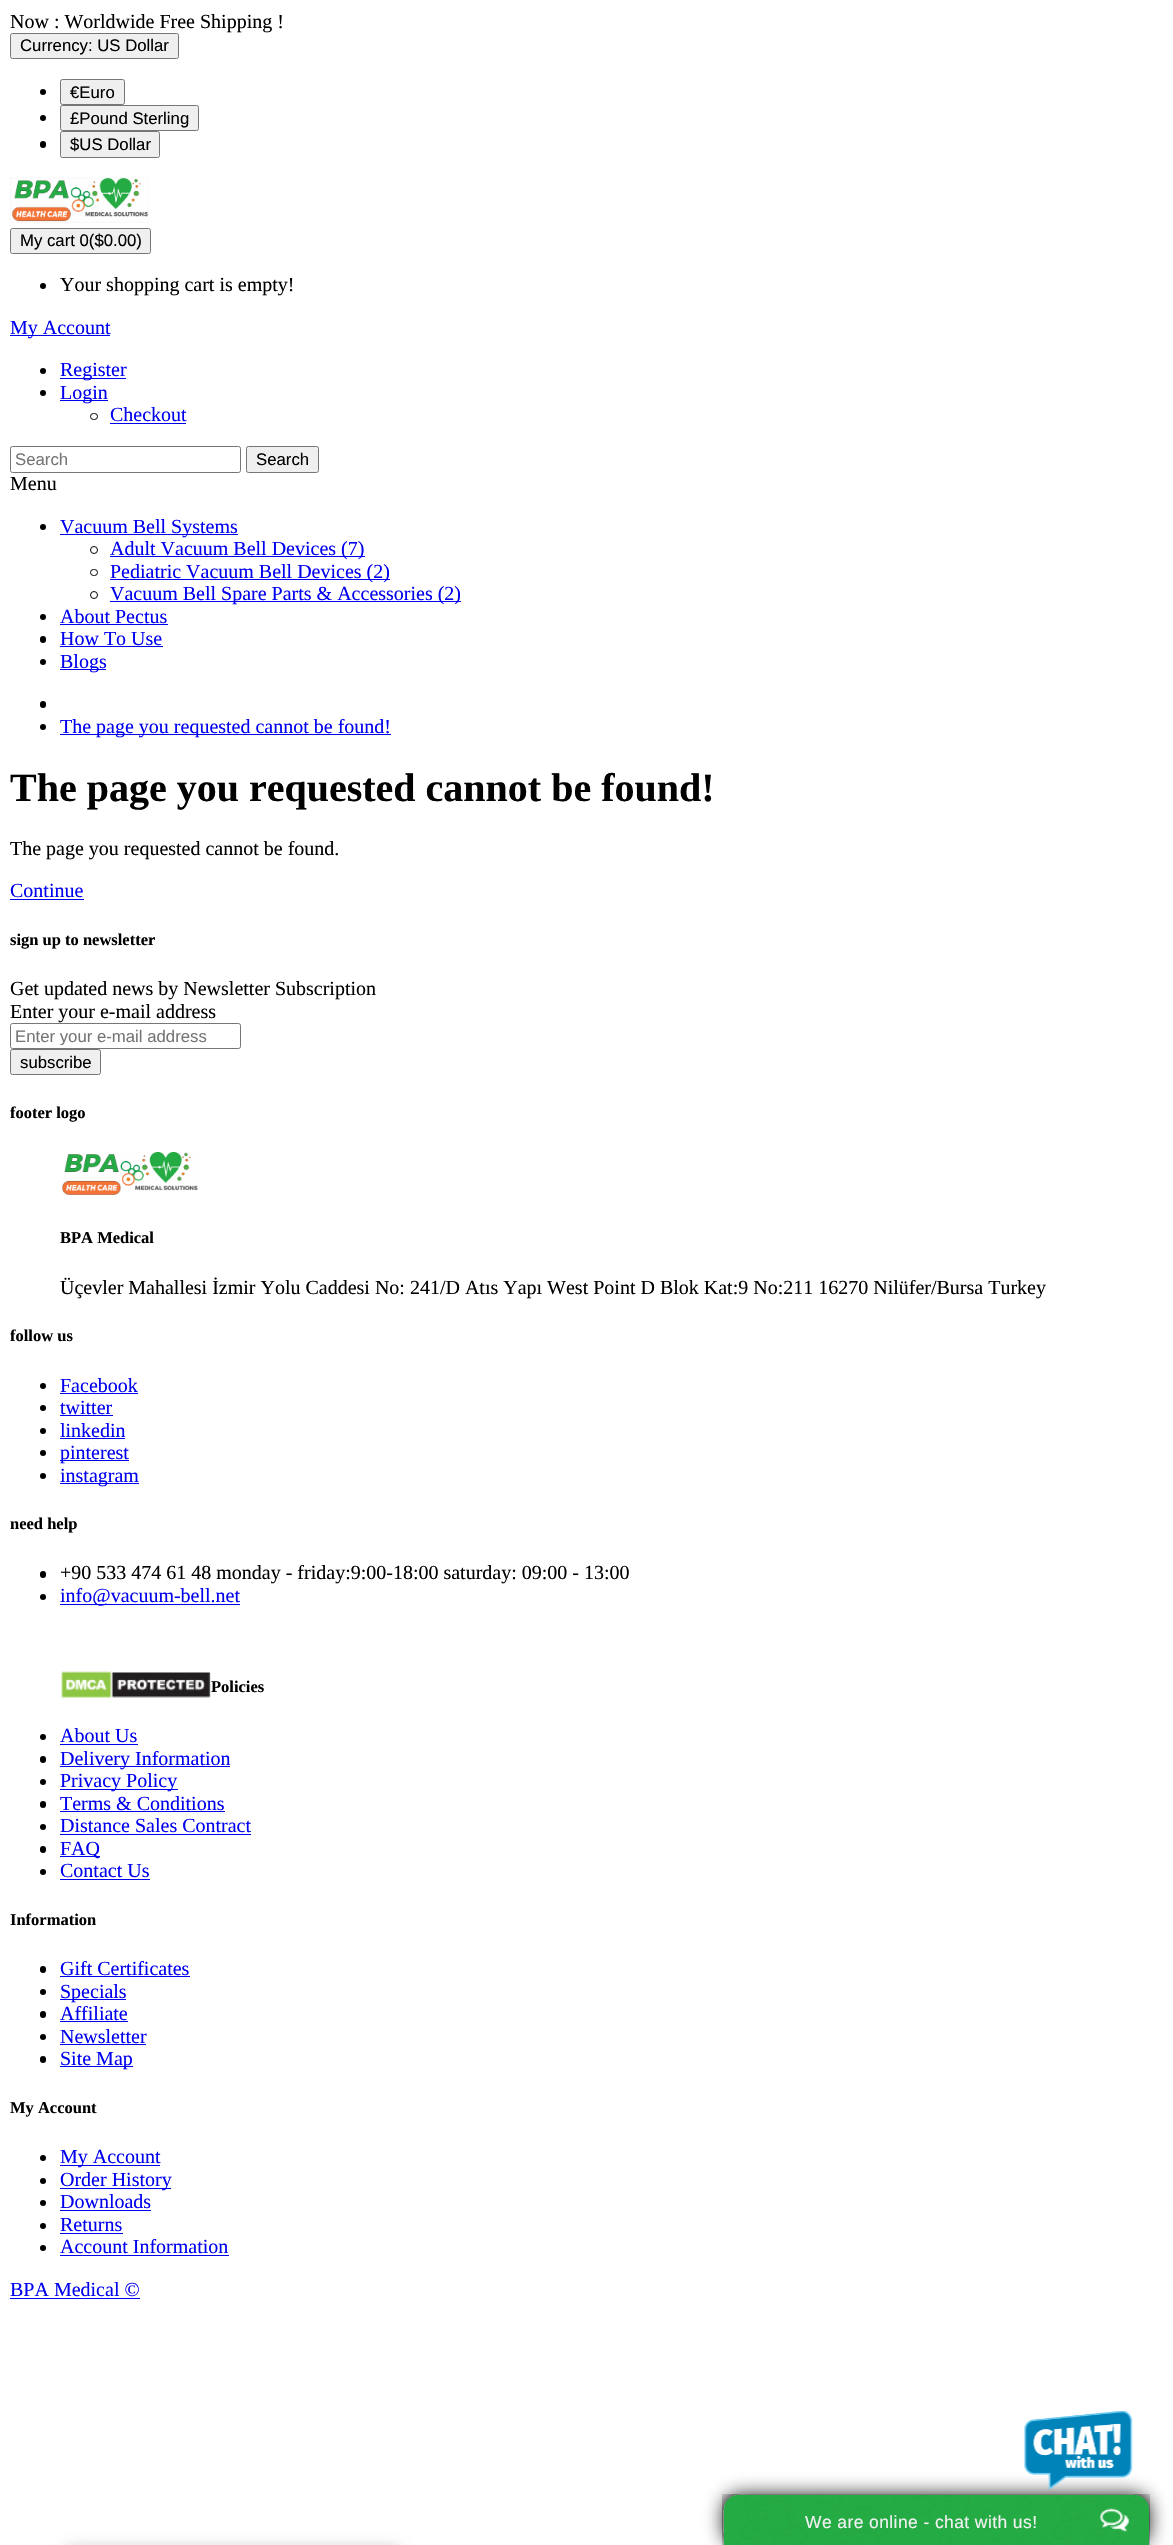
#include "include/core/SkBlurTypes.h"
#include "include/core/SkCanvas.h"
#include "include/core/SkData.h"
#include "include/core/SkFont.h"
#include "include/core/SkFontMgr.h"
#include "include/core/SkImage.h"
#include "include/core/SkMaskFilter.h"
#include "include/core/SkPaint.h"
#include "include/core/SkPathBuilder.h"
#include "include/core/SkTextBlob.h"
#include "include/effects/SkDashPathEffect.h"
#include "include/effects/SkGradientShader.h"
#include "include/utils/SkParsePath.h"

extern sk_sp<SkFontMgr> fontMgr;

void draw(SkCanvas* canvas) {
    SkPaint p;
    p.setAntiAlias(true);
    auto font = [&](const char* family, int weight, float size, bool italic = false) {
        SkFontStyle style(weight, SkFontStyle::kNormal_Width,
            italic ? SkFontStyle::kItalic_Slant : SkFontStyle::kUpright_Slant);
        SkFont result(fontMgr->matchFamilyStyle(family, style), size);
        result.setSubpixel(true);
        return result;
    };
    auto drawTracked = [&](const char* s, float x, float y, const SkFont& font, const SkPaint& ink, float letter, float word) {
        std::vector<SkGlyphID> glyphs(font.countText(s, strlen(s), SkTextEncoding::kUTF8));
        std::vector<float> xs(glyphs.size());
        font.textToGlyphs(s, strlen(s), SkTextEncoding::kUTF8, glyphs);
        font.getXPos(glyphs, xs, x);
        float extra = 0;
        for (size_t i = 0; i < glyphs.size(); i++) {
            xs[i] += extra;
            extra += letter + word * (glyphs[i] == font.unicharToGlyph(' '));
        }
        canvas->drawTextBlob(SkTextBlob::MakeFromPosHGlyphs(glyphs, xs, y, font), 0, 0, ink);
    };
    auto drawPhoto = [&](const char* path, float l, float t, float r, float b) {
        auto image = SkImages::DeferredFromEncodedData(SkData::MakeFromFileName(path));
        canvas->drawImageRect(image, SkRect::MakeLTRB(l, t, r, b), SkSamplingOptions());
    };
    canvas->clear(0xFFFFFFFF);
    auto font1 = font("Liberation Serif", 400, 20);
    p.setColor(0xFF000000);
    canvas->drawString("Now : Worldwide Free Shipping !", 10, 28, font1, p);
    p.setColor(0xFFEFEFEF);
    canvas->drawRoundRect(SkRect::MakeLTRB(10.5f, 33.5f, 178.5f, 58.5f), 2, 2, p);
    p.setStyle(SkPaint::kStroke_Style);
    p.setStrokeWidth(1);
    p.setColor(0xFF767676);
    canvas->drawRoundRect(SkRect::MakeLTRB(10.5f, 33.5f, 178.5f, 58.5f), 2, 2, p);
    auto font2 = font("Liberation Sans", 400, 16.75f);
    p.setStyle(SkPaint::kFill_Style);
    p.setColor(0xFF000000);
    canvas->drawString("Currency: US Dollar", 20, 51, font2, p);
    canvas->drawCircle(43, 92, 3, p);
    p.setColor(0xFFEFEFEF);
    canvas->drawRoundRect(SkRect::MakeLTRB(60.5f, 79.5f, 124.5f, 104.5f), 2, 2, p);
    p.setStyle(SkPaint::kStroke_Style);
    p.setColor(0xFF767676);
    canvas->drawRoundRect(SkRect::MakeLTRB(60.5f, 79.5f, 124.5f, 104.5f), 2, 2, p);
    p.setStyle(SkPaint::kFill_Style);
    p.setColor(0xFF000000);
    canvas->drawString("€Euro", 70, 98, font2, p);
    canvas->drawCircle(43, 118, 3, p);
    p.setColor(0xFFEFEFEF);
    canvas->drawRoundRect(SkRect::MakeLTRB(60.5f, 105.5f, 198.5f, 130.5f), 2, 2, p);
    p.setStyle(SkPaint::kStroke_Style);
    p.setColor(0xFF767676);
    canvas->drawRoundRect(SkRect::MakeLTRB(60.5f, 105.5f, 198.5f, 130.5f), 2, 2, p);
    p.setStyle(SkPaint::kFill_Style);
    p.setColor(0xFF000000);
    canvas->drawString("£Pound Sterling", 70, 124, font2, p);
    canvas->drawRoundRect(SkRect::MakeLTRB(40, 141, 46, 148), 3, 3, p);
    p.setColor(0xFFEFEFEF);
    canvas->drawRoundRect(SkRect::MakeLTRB(60.5f, 131.5f, 159.5f, 157.5f), 2, 2, p);
    p.setStyle(SkPaint::kStroke_Style);
    p.setColor(0xFF767676);
    canvas->drawRoundRect(SkRect::MakeLTRB(60.5f, 131.5f, 159.5f, 157.5f), 2, 2, p);
    p.setStyle(SkPaint::kFill_Style);
    p.setColor(0xFF000000);
    canvas->drawString("$US Dollar", 70, 150, font2, p);
    drawPhoto("media/1.png", 10, 177, 149, 223);
    p.setColor(0xFFEFEFEF);
    canvas->drawRoundRect(SkRect::MakeLTRB(10.5f, 228.5f, 150.5f, 253.5f), 2, 2, p);
    p.setStyle(SkPaint::kStroke_Style);
    p.setColor(0xFF767676);
    canvas->drawRoundRect(SkRect::MakeLTRB(10.5f, 228.5f, 150.5f, 253.5f), 2, 2, p);
    p.setStyle(SkPaint::kFill_Style);
    p.setColor(0xFF000000);
    canvas->drawString("My cart 0($0.00)", 20, 246, font2, p);
    canvas->drawCircle(43, 286, 3, p);
    canvas->drawString("Your shopping cart is empty!", 60, 291, font1, p);
    p.setColor(0xFF0000EE);
    canvas->drawRect(SkRect::MakeLTRB(10, 335, 110, 336), p);
    canvas->drawString("My Account", 10, 334, font1, p);
    p.setColor(0xFF000000);
    canvas->drawCircle(43, 371, 3, p);
    p.setColor(0xFF0000EE);
    canvas->drawRect(SkRect::MakeLTRB(60, 378, 126, 379), p);
    canvas->drawString("Register", 60, 376, font1, p);
    p.setColor(0xFF000000);
    canvas->drawCircle(43, 393, 3, p);
    p.setColor(0xFF0000EE);
    canvas->drawRect(SkRect::MakeLTRB(60, 400, 108, 401), p);
    canvas->drawString("Login", 60, 399, font1, p);
    p.setStyle(SkPaint::kStroke_Style);
    p.setColor(0xFF000000);
    canvas->drawRoundRect(SkRect::MakeLTRB(90.5f, 413.5f, 97.5f, 419.5f), 3, 3, p);
    p.setStyle(SkPaint::kFill_Style);
    p.setColor(0xFF0000EE);
    canvas->drawString("Checkout", 110, 421, font1, p);
    canvas->drawRect(SkRect::MakeLTRB(110, 423, 186, 424), p);
    p.setStyle(SkPaint::kStroke_Style);
    p.setColor(0xFF767676);
    canvas->drawRoundRect(SkRect::MakeLTRB(10.5f, 446.5f, 240.5f, 472.5f), 2, 2, p);
    p.setStyle(SkPaint::kFill_Style);
    p.setColor(0xFF757575);
    canvas->drawString("Search", 15, 465, font2, p);
    p.setColor(0xFFEFEFEF);
    canvas->drawRoundRect(SkRect::MakeLTRB(246.5f, 446.5f, 318.5f, 472.5f), 2, 2, p);
    p.setStyle(SkPaint::kStroke_Style);
    p.setColor(0xFF767676);
    canvas->drawRoundRect(SkRect::MakeLTRB(246.5f, 446.5f, 318.5f, 472.5f), 2, 2, p);
    p.setStyle(SkPaint::kFill_Style);
    p.setColor(0xFF000000);
    canvas->drawString("Search", 256, 465, font2, p);
    canvas->drawString("Menu", 10, 490, font1, p);
    canvas->drawCircle(43, 527, 3, p);
    p.setColor(0xFF0000EE);
    canvas->drawRect(SkRect::MakeLTRB(60, 534, 238, 535), p);
    canvas->drawString("Vacuum Bell Systems", 60, 533, font1, p);
    p.setStyle(SkPaint::kStroke_Style);
    p.setColor(0xFF000000);
    canvas->drawCircle(94, 550, 3.5f, p);
    p.setStyle(SkPaint::kFill_Style);
    p.setColor(0xFF0000EE);
    canvas->drawRect(SkRect::MakeLTRB(110, 556, 365, 557), p);
    canvas->drawString("Adult Vacuum Bell Devices (7)", 110, 555, font1, p);
    p.setStyle(SkPaint::kStroke_Style);
    p.setColor(0xFF000000);
    canvas->drawRoundRect(SkRect::MakeLTRB(90.5f, 569.5f, 97.5f, 575.5f), 3, 3, p);
    p.setStyle(SkPaint::kFill_Style);
    p.setColor(0xFF0000EE);
    canvas->drawRect(SkRect::MakeLTRB(110, 579, 390, 580), p);
    canvas->drawString("Pediatric Vacuum Bell Devices (2)", 110, 578, font1, p);
    p.setStyle(SkPaint::kStroke_Style);
    p.setColor(0xFF000000);
    canvas->drawCircle(94, 595, 3.5f, p);
    p.setStyle(SkPaint::kFill_Style);
    p.setColor(0xFF0000EE);
    canvas->drawRect(SkRect::MakeLTRB(110, 601, 461, 602), p);
    canvas->drawString("Vacuum Bell Spare Parts & Accessories (2)", 110, 600, font1, p);
    p.setColor(0xFF000000);
    canvas->drawCircle(43, 617, 3, p);
    p.setColor(0xFF0000EE);
    canvas->drawString("About Pectus", 60, 623, font1, p);
    canvas->drawRect(SkRect::MakeLTRB(60, 624, 168, 625), p);
    p.setColor(0xFF000000);
    canvas->drawRoundRect(SkRect::MakeLTRB(40, 636, 46, 643), 3, 3, p);
    p.setColor(0xFF0000EE);
    canvas->drawString("How To Use", 60, 645, font1, p);
    canvas->drawRect(SkRect::MakeLTRB(60, 646, 163, 647), p);
    p.setColor(0xFF000000);
    canvas->drawCircle(43, 662, 3, p);
    p.setColor(0xFF0000EE);
    canvas->drawRect(SkRect::MakeLTRB(60, 669, 106, 670), p);
    canvas->drawString("Blogs", 60, 668, font1, p);
    p.setColor(0xFF000000);
    canvas->drawRoundRect(SkRect::MakeLTRB(40, 701, 46, 708), 3, 3, p);
    canvas->drawCircle(43, 727, 3, p);
    p.setColor(0xFF0000EE);
    canvas->drawRect(SkRect::MakeLTRB(60, 734, 391, 735), p);
    canvas->drawString("The page you requested cannot be found!", 60, 733, font1, p);
    auto font3 = font("Liberation Serif", 700, 40);
    p.setColor(0xFF000000);
    canvas->drawString("The page you requested cannot be found!", 10, 801, font3, p);
    canvas->drawString("The page you requested cannot be found.", 10, 855, font1, p);
    p.setColor(0xFF0000EE);
    canvas->drawString("Continue", 10, 897, font1, p);
    canvas->drawRect(SkRect::MakeLTRB(10, 899, 84, 900), p);
    auto font4 = font("Liberation Serif", 700, 16.5f);
    p.setColor(0xFF000000);
    canvas->drawString("sign up to newsletter", 10, 945, font4, p);
    canvas->drawString("Get updated news by Newsletter Subscription", 10, 995, font1, p);
    canvas->drawString("Enter your e-mail address", 10, 1018, font1, p);
    p.setStyle(SkPaint::kStroke_Style);
    p.setColor(0xFF767676);
    canvas->drawRoundRect(SkRect::MakeLTRB(10.5f, 1023.5f, 240.5f, 1048.5f), 2, 2, p);
    canvas->save();
    canvas->clipRect(SkRect::MakeLTRB(15, 1026, 236, 1045));
    p.setStyle(SkPaint::kFill_Style);
    p.setColor(0xFF757575);
    canvas->drawString("Enter your e-mail address", 15, 1042, font2, p);
    canvas->restore();
    p.setColor(0xFFEFEFEF);
    canvas->drawRoundRect(SkRect::MakeLTRB(10.5f, 1049.5f, 100.5f, 1074.5f), 2, 2, p);
    p.setStyle(SkPaint::kStroke_Style);
    p.setColor(0xFF767676);
    canvas->drawRoundRect(SkRect::MakeLTRB(10.5f, 1049.5f, 100.5f, 1074.5f), 2, 2, p);
    p.setStyle(SkPaint::kFill_Style);
    p.setColor(0xFF000000);
    canvas->drawString("subscribe", 20, 1068, font2, p);
    canvas->drawString("footer logo", 10, 1118, font4, p);
    drawPhoto("media/2.png", 62, 1151, 198, 1195);
    canvas->drawString("BPA Medical", 60, 1243, font4, p);
    canvas->drawString("Üçevler Mahallesi İzmir Yolu Caddesi No: 241/D Atıs Yapı West Point D Blok Kat:9 No:211 16270 Nilüfer/Bursa Turkey", 60, 1294, font1, p);
    canvas->drawString("follow us", 10, 1341, font4, p);
    canvas->drawCircle(43, 1386, 3, p);
    p.setColor(0xFF0000EE);
    canvas->drawString("Facebook", 60, 1392, font1, p);
    canvas->drawRect(SkRect::MakeLTRB(60, 1393, 138, 1394), p);
    p.setColor(0xFF000000);
    canvas->drawCircle(43, 1408, 3, p);
    p.setColor(0xFF0000EE);
    canvas->drawString("twitter", 60, 1414, font1, p);
    canvas->drawRect(SkRect::MakeLTRB(60, 1415, 113, 1416), p);
    p.setColor(0xFF000000);
    canvas->drawCircle(43, 1431, 3, p);
    p.setColor(0xFF0000EE);
    canvas->drawString("linkedin", 60, 1437, font1, p);
    canvas->drawRect(SkRect::MakeLTRB(60, 1438, 125, 1439), p);
    p.setColor(0xFF000000);
    canvas->drawCircle(43, 1453, 3, p);
    p.setColor(0xFF0000EE);
    canvas->drawRect(SkRect::MakeLTRB(60, 1460, 129, 1461), p);
    canvas->drawString("pinterest", 60, 1459, font1, p);
    p.setColor(0xFF000000);
    canvas->drawCircle(43, 1476, 3, p);
    p.setColor(0xFF0000EE);
    canvas->drawRect(SkRect::MakeLTRB(60, 1483, 139, 1484), p);
    canvas->drawString("instagram", 60, 1482, font1, p);
    p.setColor(0xFF000000);
    canvas->drawString("need help", 10, 1529, font4, p);
    canvas->drawRoundRect(SkRect::MakeLTRB(40, 1571, 46, 1578), 3, 3, p);
    canvas->drawString("+90 533 474 61 48 monday - friday:9:00-18:00 saturday: 09:00 - 13:00", 60, 1579, font1, p);
    canvas->drawCircle(43, 1597, 3, p);
    p.setColor(0xFF0000EE);
    canvas->drawRect(SkRect::MakeLTRB(60, 1604, 240, 1605), p);
    canvas->drawString("info@vacuum-bell.net", 60, 1602, font1, p);
    drawPhoto("media/3.png", 61, 1671, 211, 1698);
    p.setColor(0xFF000000);
    canvas->drawString("Policies", 211, 1692, font4, p);
    canvas->drawCircle(43, 1737, 3, p);
    p.setColor(0xFF0000EE);
    canvas->drawString("About Us", 60, 1742, font1, p);
    canvas->drawRect(SkRect::MakeLTRB(60, 1744, 138, 1745), p);
    p.setColor(0xFF000000);
    canvas->drawRoundRect(SkRect::MakeLTRB(40, 1756, 46, 1763), 3, 3, p);
    p.setColor(0xFF0000EE);
    canvas->drawRect(SkRect::MakeLTRB(60, 1766, 230, 1767), p);
    canvas->drawString("Delivery Information", 60, 1765, font1, p);
    p.setColor(0xFF000000);
    canvas->drawCircle(43, 1782, 3, p);
    p.setColor(0xFF0000EE);
    canvas->drawRect(SkRect::MakeLTRB(60, 1789, 178, 1790), p);
    canvas->drawString("Privacy Policy", 60, 1787, font1, p);
    p.setColor(0xFF000000);
    canvas->drawRoundRect(SkRect::MakeLTRB(40, 1801, 46, 1808), 3, 3, p);
    p.setColor(0xFF0000EE);
    canvas->drawString("Terms & Conditions", 60, 1810, font1, p);
    canvas->drawRect(SkRect::MakeLTRB(60, 1811, 225, 1812), p);
    p.setColor(0xFF000000);
    canvas->drawCircle(43, 1827, 3, p);
    p.setColor(0xFF0000EE);
    canvas->drawString("Distance Sales Contract", 60, 1832, font1, p);
    canvas->drawRect(SkRect::MakeLTRB(60, 1834, 251, 1835), p);
    p.setColor(0xFF000000);
    canvas->drawRoundRect(SkRect::MakeLTRB(40, 1846, 46, 1853), 3, 3, p);
    p.setColor(0xFF0000EE);
    canvas->drawRect(SkRect::MakeLTRB(60, 1856, 100, 1857), p);
    canvas->drawString("FAQ", 60, 1855, font1, p);
    p.setColor(0xFF000000);
    canvas->drawCircle(43, 1872, 3, p);
    p.setColor(0xFF0000EE);
    canvas->drawString("Contact Us", 60, 1877, font1, p);
    canvas->drawRect(SkRect::MakeLTRB(60, 1879, 150, 1880), p);
    p.setColor(0xFF000000);
    canvas->drawString("Information", 10, 1925, font4, p);
    canvas->drawRoundRect(SkRect::MakeLTRB(40, 1966, 46, 1973), 3, 3, p);
    p.setColor(0xFF0000EE);
    canvas->drawString("Gift Certificates", 60, 1975, font1, p);
    canvas->drawRect(SkRect::MakeLTRB(60, 1976, 190, 1977), p);
    p.setColor(0xFF000000);
    canvas->drawCircle(43, 1992, 3, p);
    p.setColor(0xFF0000EE);
    canvas->drawRect(SkRect::MakeLTRB(60, 1999, 126, 2000), p);
    canvas->drawString("Specials", 60, 1998, font1, p);
    p.setColor(0xFF000000);
    canvas->drawRoundRect(SkRect::MakeLTRB(40, 2011, 46, 2018), 3, 3, p);
    p.setColor(0xFF0000EE);
    canvas->drawString("Affiliate", 60, 2020, font1, p);
    canvas->drawRect(SkRect::MakeLTRB(60, 2021, 128, 2022), p);
    p.setColor(0xFF000000);
    canvas->drawCircle(43, 2037, 3, p);
    p.setColor(0xFF0000EE);
    canvas->drawString("Newsletter", 60, 2043, font1, p);
    canvas->drawRect(SkRect::MakeLTRB(60, 2044, 146, 2045), p);
    p.setColor(0xFF000000);
    canvas->drawRoundRect(SkRect::MakeLTRB(40, 2056, 46, 2063), 3, 3, p);
    p.setColor(0xFF0000EE);
    canvas->drawRect(SkRect::MakeLTRB(60, 2066, 133, 2067), p);
    canvas->drawString("Site Map", 60, 2065, font1, p);
    p.setColor(0xFF000000);
    canvas->drawString("My Account", 10, 2113, font4, p);
    canvas->drawCircle(43, 2158, 3, p);
    p.setColor(0xFF0000EE);
    canvas->drawRect(SkRect::MakeLTRB(60, 2165, 160, 2166), p);
    canvas->drawString("My Account", 60, 2163, font1, p);
    p.setColor(0xFF000000);
    canvas->drawCircle(43, 2181, 3, p);
    p.setColor(0xFF0000EE);
    canvas->drawRect(SkRect::MakeLTRB(60, 2188, 171, 2189), p);
    canvas->drawString("Order History", 60, 2186, font1, p);
    p.setColor(0xFF000000);
    canvas->drawCircle(43, 2203, 3, p);
    p.setColor(0xFF0000EE);
    canvas->drawString("Downloads", 60, 2208, font1, p);
    canvas->drawRect(SkRect::MakeLTRB(60, 2210, 151, 2211), p);
    p.setColor(0xFF000000);
    canvas->drawCircle(43, 2226, 3, p);
    p.setColor(0xFF0000EE);
    canvas->drawString("Returns", 60, 2231, font1, p);
    canvas->drawRect(SkRect::MakeLTRB(60, 2233, 123, 2234), p);
    p.setColor(0xFF000000);
    canvas->drawCircle(43, 2248, 3, p);
    p.setColor(0xFF0000EE);
    canvas->drawString("Account Information", 60, 2253, font1, p);
    canvas->drawRect(SkRect::MakeLTRB(60, 2255, 229, 2256), p);
    canvas->drawString("BPA Medical ©", 10, 2296, font1, p);
    canvas->drawRect(SkRect::MakeLTRB(10, 2298, 140, 2299), p);
    p.setColor(0xFF111111);
    p.setMaskFilter(SkMaskFilter::MakeBlur(kNormal_SkBlurStyle, 9.5f));
    canvas->drawRoundRect(SkRect::MakeLTRB(724, 2495, 1149, 2545), 16, 16, p);
    p.setMaskFilter(nullptr);
    drawPhoto("media/4.png", 1023, 2411, 1133, 2490);
    drawPhoto("media/5.png", 722, 2494, 1150, 2545);
    p.setColor(0xFF25AB44);
    canvas->drawPath(SkPathBuilder().moveTo(738, 2495).lineTo(1135, 2495).cubicTo(1142.5f, 2495, 1149, 2501.5f, 1149, 2509).lineTo(1149, 2545).lineTo(724, 2545).lineTo(724, 2509).cubicTo(724, 2501.5f, 730.5f, 2495, 738, 2495).close().detach(), p);
    drawPhoto("media/6.png", 730, 2495, 1145, 2545);
    auto font5 = font("Liberation Sans", 400, 17.5f);
    p.setColor(0xFFF1F1F1);
    drawTracked("We are online - chat with us!", 805, 2528, font5, p, 0.4f, 0);
    drawPhoto("media/7.png", 1100, 2508, 1129, 2532);
    p.setColor(0x26000000);
    p.setMaskFilter(SkMaskFilter::MakeBlur(kNormal_SkBlurStyle, 6));
    canvas->drawRoundRect(SkRect::MakeLTRB(63, 2545, 403, 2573), 10, 10, p);
    p.setMaskFilter(nullptr);
}
